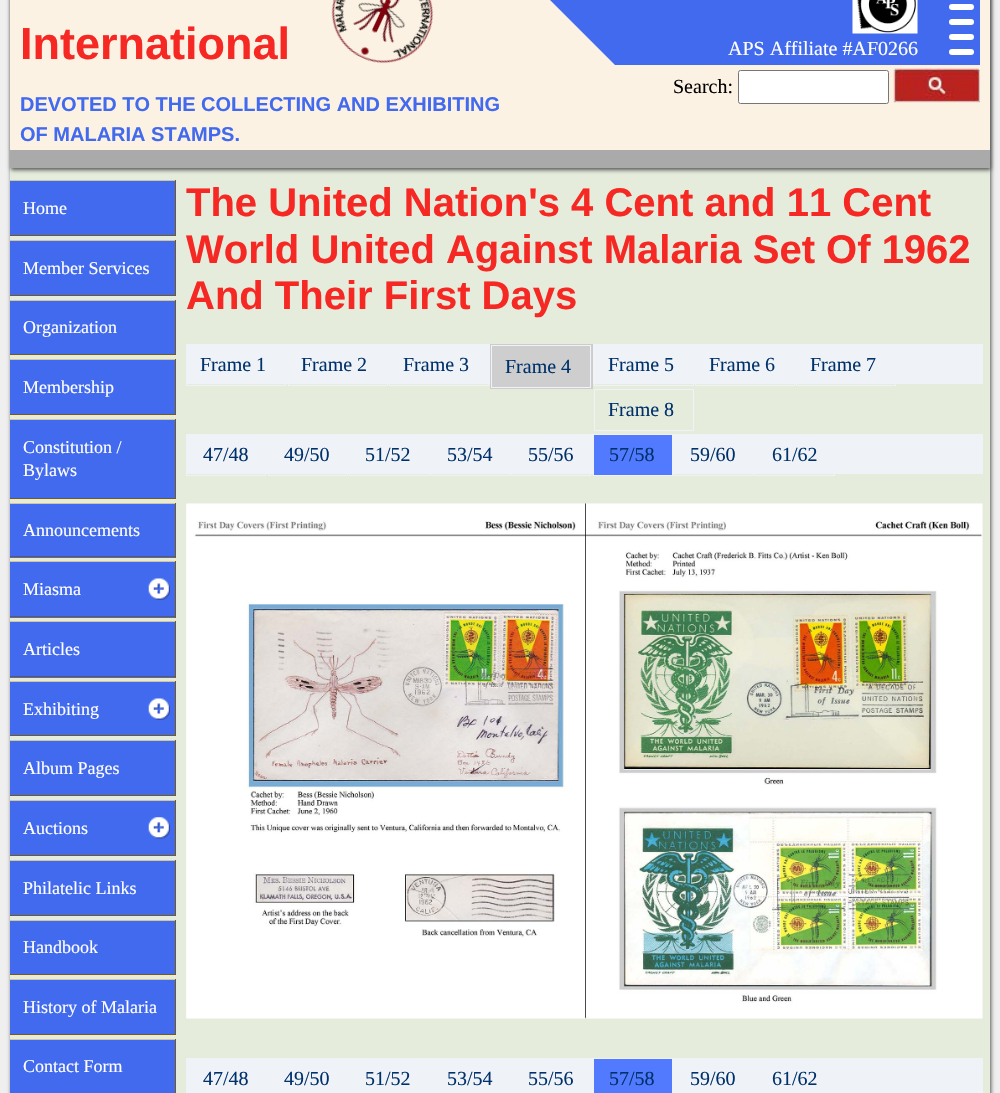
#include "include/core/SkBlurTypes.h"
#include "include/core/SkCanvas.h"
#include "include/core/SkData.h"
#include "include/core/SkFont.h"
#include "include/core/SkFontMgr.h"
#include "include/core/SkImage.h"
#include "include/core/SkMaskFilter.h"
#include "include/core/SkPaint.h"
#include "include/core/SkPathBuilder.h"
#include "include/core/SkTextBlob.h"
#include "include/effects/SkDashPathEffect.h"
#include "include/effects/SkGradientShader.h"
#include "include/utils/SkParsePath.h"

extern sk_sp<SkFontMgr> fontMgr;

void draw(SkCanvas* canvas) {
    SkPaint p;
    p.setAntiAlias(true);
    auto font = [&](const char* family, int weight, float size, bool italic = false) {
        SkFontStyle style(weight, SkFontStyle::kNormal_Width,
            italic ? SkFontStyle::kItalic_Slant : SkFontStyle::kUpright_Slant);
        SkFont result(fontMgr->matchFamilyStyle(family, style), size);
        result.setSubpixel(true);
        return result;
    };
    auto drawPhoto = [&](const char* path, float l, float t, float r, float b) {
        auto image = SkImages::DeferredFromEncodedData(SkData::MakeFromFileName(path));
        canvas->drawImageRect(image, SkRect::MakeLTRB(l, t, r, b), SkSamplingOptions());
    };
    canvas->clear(0xFFEFEFEF);
    p.setColor(0xFF555555);
    p.setMaskFilter(SkMaskFilter::MakeBlur(kNormal_SkBlurStyle, 2));
    canvas->drawRect(SkRect::MakeLTRB(11, -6, 991, 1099), p);
    p.setMaskFilter(nullptr);
    p.setColor(0xFFE5ECDB);
    canvas->drawRect(SkRect::MakeLTRB(10, 168, 990, 1093), p);
    p.setColor(0xFF555555);
    p.setMaskFilter(SkMaskFilter::MakeBlur(kNormal_SkBlurStyle, 2));
    canvas->drawRect(SkRect::MakeLTRB(11, -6, 991, 170), p);
    p.setMaskFilter(nullptr);
    p.setColor(0xFFFCF2E3);
    canvas->drawRect(SkRect::MakeLTRB(10, 0, 990, 150), p);
    p.setColor(0xFFAAAAAA);
    canvas->drawRect(SkRect::MakeLTRB(10, 150, 990, 168), p);
    auto font1 = font("Liberation Sans", 700, 45);
    p.setColor(0xFFF62824);
    canvas->drawString("International", 20, 59, font1, p);
    drawPhoto("media/1.png", 331, 0, 434, 64);
    p.setColor(0xFF426AEE);
    canvas->drawPath(SkPathBuilder().moveTo(515, -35).lineTo(980, -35).lineTo(980, 65).lineTo(615, 65).close().detach(), p);
    drawPhoto("media/2.png", 852, 0, 918, 34);
    p.setColor(0xFFFFFFFF);
    canvas->drawRoundRect(SkRect::MakeLTRB(949, 4, 974, 10), 3, 3, p);
    canvas->drawRoundRect(SkRect::MakeLTRB(949, 19, 974, 25), 3, 3, p);
    canvas->drawRoundRect(SkRect::MakeLTRB(949, 34, 974, 40), 3, 3, p);
    canvas->drawRoundRect(SkRect::MakeLTRB(949, 49, 974, 55), 3, 3, p);
    auto font2 = font("Liberation Serif", 400, 20);
    canvas->drawString("APS Affiliate #AF0266", 728, 55, font2, p);
    p.setColor(0xFF000000);
    canvas->drawString("Search:", 673, 93, font2, p);
    p.setColor(0xFFFFFFFF);
    canvas->drawRoundRect(SkRect::MakeLTRB(738.5f, 70.5f, 888.5f, 103.5f), 2, 2, p);
    p.setStyle(SkPaint::kStroke_Style);
    p.setStrokeWidth(1);
    p.setColor(0xFF767676);
    canvas->drawRoundRect(SkRect::MakeLTRB(738.5f, 70.5f, 888.5f, 103.5f), 2, 2, p);
    drawPhoto("media/3.png", 893, 68, 980, 103);
    auto font3 = font("Liberation Sans", 700, 20);
    p.setStyle(SkPaint::kFill_Style);
    p.setColor(0xFF426AEE);
    canvas->drawString("DEVOTED TO THE COLLECTING AND EXHIBITING", 20, 111, font3, p);
    canvas->drawString("OF MALARIA STAMPS.", 20, 141, font3, p);
    {
        const struct { float l, t, r, b; SkColor color; } items[] = {
            {10, 181, 175, 235, 0xFF426AEE},
            {10, 180, 176, 181, 0xFFD3C69E},
            {175, 180, 176, 236, 0xFF745C17},
            {10, 235, 176, 236, 0xFF745C17},
        };
        for (auto [l, t, r, b, color] : items) {
            p.setColor(color);
            canvas->drawRect(SkRect::MakeLTRB(l, t, r, b), p);
        }
    }
    auto font4 = font("Liberation Serif", 400, 18);
    p.setColor(0xFFFFFFFF);
    canvas->drawString("Home", 23, 214, font4, p);
    {
        const struct { float l, t, r, b; SkColor color; } items[] = {
            {10, 241, 175, 295, 0xFF426AEE},
            {10, 240, 176, 241, 0xFFD3C69E},
            {175, 240, 176, 296, 0xFF745C17},
            {10, 295, 176, 296, 0xFF745C17},
        };
        for (auto [l, t, r, b, color] : items) {
            p.setColor(color);
            canvas->drawRect(SkRect::MakeLTRB(l, t, r, b), p);
        }
    }
    p.setColor(0xFFFFFFFF);
    canvas->drawString("Member Services", 23, 274, font4, p);
    {
        const struct { float l, t, r, b; SkColor color; } items[] = {
            {10, 301, 175, 354, 0xFF426AEE},
            {10, 300, 176, 301, 0xFFD3C69E},
            {175, 300, 176, 355, 0xFF745C17},
            {10, 354, 176, 355, 0xFF745C17},
        };
        for (auto [l, t, r, b, color] : items) {
            p.setColor(color);
            canvas->drawRect(SkRect::MakeLTRB(l, t, r, b), p);
        }
    }
    p.setColor(0xFFFFFFFF);
    canvas->drawString("Organization", 23, 333, font4, p);
    {
        const struct { float l, t, r, b; SkColor color; } items[] = {
            {10, 360, 175, 414, 0xFF426AEE},
            {10, 359, 176, 360, 0xFFD3C69E},
            {175, 359, 176, 415, 0xFF745C17},
            {10, 414, 176, 415, 0xFF745C17},
        };
        for (auto [l, t, r, b, color] : items) {
            p.setColor(color);
            canvas->drawRect(SkRect::MakeLTRB(l, t, r, b), p);
        }
    }
    p.setColor(0xFFFFFFFF);
    canvas->drawString("Membership", 23, 393, font4, p);
    {
        const struct { float l, t, r, b; SkColor color; } items[] = {
            {10, 420, 175, 498, 0xFF426AEE},
            {10, 419, 176, 420, 0xFFD3C69E},
            {175, 419, 176, 499, 0xFF745C17},
            {10, 498, 176, 499, 0xFF745C17},
        };
        for (auto [l, t, r, b, color] : items) {
            p.setColor(color);
            canvas->drawRect(SkRect::MakeLTRB(l, t, r, b), p);
        }
    }
    p.setColor(0xFFFFFFFF);
    canvas->drawString("Constitution /", 23, 453, font4, p);
    canvas->drawString("Bylaws", 23, 476, font4, p);
    {
        const struct { float l, t, r, b; SkColor color; } items[] = {
            {10, 504, 175, 558, 0xFF426AEE},
            {10, 503, 176, 504, 0xFFD3C69E},
            {175, 503, 176, 558, 0xFF745C17},
            {10, 556, 176, 557, 0xFF745C17},
        };
        for (auto [l, t, r, b, color] : items) {
            p.setColor(color);
            canvas->drawRect(SkRect::MakeLTRB(l, t, r, b), p);
        }
    }
    p.setColor(0xFFFFFFFF);
    canvas->drawString("Announcements", 23, 536, font4, p);
    {
        const struct { float l, t, r, b; SkColor color; } items[] = {
            {10, 562, 175, 618, 0xFF426AEE},
            {10, 561, 176, 562, 0xFFD3C69E},
            {175, 561, 176, 618, 0xFF745C17},
            {10, 616, 176, 617, 0xFF745C17},
        };
        for (auto [l, t, r, b, color] : items) {
            p.setColor(color);
            canvas->drawRect(SkRect::MakeLTRB(l, t, r, b), p);
        }
    }
    drawPhoto("media/4.png", 148, 578, 170, 600);
    p.setColor(0xFFFFFFFF);
    canvas->drawString("Miasma", 23, 595, font4, p);
    {
        const struct { float l, t, r, b; SkColor color; } items[] = {
            {10, 622, 175, 678, 0xFF426AEE},
            {10, 621, 176, 622, 0xFFD3C69E},
            {175, 621, 176, 678, 0xFF745C17},
            {10, 676, 176, 677, 0xFF745C17},
        };
        for (auto [l, t, r, b, color] : items) {
            p.setColor(color);
            canvas->drawRect(SkRect::MakeLTRB(l, t, r, b), p);
        }
    }
    p.setColor(0xFFFFFFFF);
    canvas->drawString("Articles", 23, 655, font4, p);
    {
        const struct { float l, t, r, b; SkColor color; } items[] = {
            {10, 682, 175, 735, 0xFF426AEE},
            {10, 681, 176, 682, 0xFFD3C69E},
            {175, 681, 176, 736, 0xFF745C17},
            {10, 735, 176, 736, 0xFF745C17},
        };
        for (auto [l, t, r, b, color] : items) {
            p.setColor(color);
            canvas->drawRect(SkRect::MakeLTRB(l, t, r, b), p);
        }
    }
    drawPhoto("media/4.png", 148, 698, 170, 720);
    p.setColor(0xFFFFFFFF);
    canvas->drawString("Exhibiting", 23, 715, font4, p);
    {
        const struct { float l, t, r, b; SkColor color; } items[] = {
            {10, 741, 175, 795, 0xFF426AEE},
            {10, 740, 176, 741, 0xFFD3C69E},
            {175, 740, 176, 796, 0xFF745C17},
            {10, 795, 176, 796, 0xFF745C17},
        };
        for (auto [l, t, r, b, color] : items) {
            p.setColor(color);
            canvas->drawRect(SkRect::MakeLTRB(l, t, r, b), p);
        }
    }
    p.setColor(0xFFFFFFFF);
    canvas->drawString("Album Pages", 23, 774, font4, p);
    {
        const struct { float l, t, r, b; SkColor color; } items[] = {
            {10, 801, 175, 855, 0xFF426AEE},
            {10, 800, 176, 801, 0xFFD3C69E},
            {175, 800, 176, 856, 0xFF745C17},
            {10, 855, 176, 856, 0xFF745C17},
        };
        for (auto [l, t, r, b, color] : items) {
            p.setColor(color);
            canvas->drawRect(SkRect::MakeLTRB(l, t, r, b), p);
        }
    }
    drawPhoto("media/5.png", 148, 817, 170, 839);
    p.setColor(0xFFFFFFFF);
    canvas->drawString("Auctions", 23, 834, font4, p);
    {
        const struct { float l, t, r, b; SkColor color; } items[] = {
            {10, 861, 175, 915, 0xFF426AEE},
            {10, 860, 176, 861, 0xFFD3C69E},
            {175, 860, 176, 916, 0xFF745C17},
            {10, 915, 176, 916, 0xFF745C17},
        };
        for (auto [l, t, r, b, color] : items) {
            p.setColor(color);
            canvas->drawRect(SkRect::MakeLTRB(l, t, r, b), p);
        }
    }
    p.setColor(0xFFFFFFFF);
    canvas->drawString("Philatelic Links", 23, 894, font4, p);
    {
        const struct { float l, t, r, b; SkColor color; } items[] = {
            {10, 921, 175, 974, 0xFF426AEE},
            {10, 920, 176, 921, 0xFFD3C69E},
            {175, 920, 176, 975, 0xFF745C17},
            {10, 974, 176, 975, 0xFF745C17},
        };
        for (auto [l, t, r, b, color] : items) {
            p.setColor(color);
            canvas->drawRect(SkRect::MakeLTRB(l, t, r, b), p);
        }
    }
    p.setColor(0xFFFFFFFF);
    canvas->drawString("Handbook", 23, 953, font4, p);
    {
        const struct { float l, t, r, b; SkColor color; } items[] = {
            {10, 980, 175, 1034, 0xFF426AEE},
            {10, 979, 176, 980, 0xFFD3C69E},
            {175, 979, 176, 1035, 0xFF745C17},
            {10, 1034, 176, 1035, 0xFF745C17},
        };
        for (auto [l, t, r, b, color] : items) {
            p.setColor(color);
            canvas->drawRect(SkRect::MakeLTRB(l, t, r, b), p);
        }
    }
    p.setColor(0xFFFFFFFF);
    canvas->drawString("History of Malaria", 23, 1013, font4, p);
    {
        const struct { float l, t, r, b; SkColor color; } items[] = {
            {10, 1040, 175, 1093, 0xFF426AEE},
            {10, 1039, 176, 1040, 0xFFD3C69E},
            {175, 1039, 176, 1093, 0xFF745C17},
        };
        for (auto [l, t, r, b, color] : items) {
            p.setColor(color);
            canvas->drawRect(SkRect::MakeLTRB(l, t, r, b), p);
        }
    }
    p.setColor(0xFFFFFFFF);
    canvas->drawString("Contact Form", 23, 1072, font4, p);
    auto font5 = font("Liberation Sans", 700, 40);
    p.setColor(0xFFF62824);
    {
        const struct { const char* s; float x, y; } items[] = {
            {"The United Nation's 4 Cent and 11 Cent", 186, 216},
            {"World United Against Malaria Set Of 1962", 186, 263},
            {"And Their First Days", 186, 309},
        };
        for (auto [s, x, y] : items) {
            canvas->drawString(s, x, y, font5, p);
        }
    }
    p.setColor(0xFFEFF2F6);
    canvas->drawRect(SkRect::MakeLTRB(187, 344, 983, 384), p);
    p.setStyle(SkPaint::kStroke_Style);
    canvas->drawRect(SkRect::MakeLTRB(186.5f, 344.5f, 285.5f, 385.5f), p);
    p.setStyle(SkPaint::kFill_Style);
    p.setColor(0xFF00316B);
    canvas->drawString("Frame 1", 200, 371, font2, p);
    p.setStyle(SkPaint::kStroke_Style);
    p.setColor(0xFFEFF2F6);
    canvas->drawRect(SkRect::MakeLTRB(288.5f, 344.5f, 387.5f, 385.5f), p);
    p.setStyle(SkPaint::kFill_Style);
    p.setColor(0xFF00316B);
    canvas->drawString("Frame 2", 301, 371, font2, p);
    p.setStyle(SkPaint::kStroke_Style);
    p.setColor(0xFFEFF2F6);
    canvas->drawRect(SkRect::MakeLTRB(389.5f, 344.5f, 488.5f, 385.5f), p);
    p.setStyle(SkPaint::kFill_Style);
    p.setColor(0xFF00316B);
    canvas->drawString("Frame 3", 403, 371, font2, p);
    p.setColor(0xFFCECECE);
    canvas->drawRect(SkRect::MakeLTRB(492, 345, 592, 388), p);
    p.setStyle(SkPaint::kStroke_Style);
    p.setColor(0xFFCCCCCC);
    canvas->drawRect(SkRect::MakeLTRB(490.5f, 344.5f, 592.5f, 388.5f), p);
    p.setColor(0xFFEFF2F6);
    canvas->drawRect(SkRect::MakeLTRB(491.5f, 345.5f, 590.5f, 387.5f), p);
    p.setStyle(SkPaint::kFill_Style);
    p.setColor(0xFF00316B);
    canvas->drawString("Frame 4", 505, 373, font2, p);
    p.setStyle(SkPaint::kStroke_Style);
    p.setColor(0xFFEFF2F6);
    canvas->drawRect(SkRect::MakeLTRB(594.5f, 344.5f, 693.5f, 385.5f), p);
    p.setStyle(SkPaint::kFill_Style);
    p.setColor(0xFF00316B);
    canvas->drawString("Frame 5", 608, 371, font2, p);
    p.setStyle(SkPaint::kStroke_Style);
    p.setColor(0xFFEFF2F6);
    canvas->drawRect(SkRect::MakeLTRB(695.5f, 344.5f, 794.5f, 385.5f), p);
    p.setStyle(SkPaint::kFill_Style);
    p.setColor(0xFF00316B);
    canvas->drawString("Frame 6", 709, 371, font2, p);
    p.setStyle(SkPaint::kStroke_Style);
    p.setColor(0xFFEFF2F6);
    canvas->drawRect(SkRect::MakeLTRB(796.5f, 344.5f, 895.5f, 385.5f), p);
    p.setStyle(SkPaint::kFill_Style);
    p.setColor(0xFF00316B);
    canvas->drawString("Frame 7", 810, 371, font2, p);
    p.setStyle(SkPaint::kStroke_Style);
    p.setColor(0xFFEFF2F6);
    canvas->drawRect(SkRect::MakeLTRB(594.5f, 389.5f, 693.5f, 430.5f), p);
    p.setStyle(SkPaint::kFill_Style);
    p.setColor(0xFF00316B);
    canvas->drawString("Frame 8", 608, 416, font2, p);
    p.setColor(0xFFEFF2F6);
    canvas->drawRect(SkRect::MakeLTRB(187, 434, 983, 474), p);
    p.setStyle(SkPaint::kStroke_Style);
    canvas->drawRect(SkRect::MakeLTRB(186.5f, 434.5f, 265.5f, 475.5f), p);
    p.setStyle(SkPaint::kFill_Style);
    p.setColor(0xFF00316B);
    canvas->drawString("47/48", 203, 461, font2, p);
    p.setStyle(SkPaint::kStroke_Style);
    p.setColor(0xFFEFF2F6);
    canvas->drawRect(SkRect::MakeLTRB(268.5f, 434.5f, 347.5f, 475.5f), p);
    p.setStyle(SkPaint::kFill_Style);
    p.setColor(0xFF00316B);
    canvas->drawString("49/50", 284, 461, font2, p);
    p.setStyle(SkPaint::kStroke_Style);
    p.setColor(0xFFEFF2F6);
    canvas->drawRect(SkRect::MakeLTRB(349.5f, 434.5f, 428.5f, 475.5f), p);
    p.setStyle(SkPaint::kFill_Style);
    p.setColor(0xFF00316B);
    canvas->drawString("51/52", 365, 461, font2, p);
    p.setStyle(SkPaint::kStroke_Style);
    p.setColor(0xFFEFF2F6);
    canvas->drawRect(SkRect::MakeLTRB(430.5f, 434.5f, 509.5f, 475.5f), p);
    p.setStyle(SkPaint::kFill_Style);
    p.setColor(0xFF00316B);
    canvas->drawString("53/54", 447, 461, font2, p);
    p.setStyle(SkPaint::kStroke_Style);
    p.setColor(0xFFEFF2F6);
    canvas->drawRect(SkRect::MakeLTRB(511.5f, 434.5f, 590.5f, 475.5f), p);
    p.setStyle(SkPaint::kFill_Style);
    p.setColor(0xFF00316B);
    canvas->drawString("55/56", 528, 461, font2, p);
    p.setColor(0xFF527AFE);
    canvas->drawRect(SkRect::MakeLTRB(593.5f, 434.5f, 672.5f, 475.5f), p);
    p.setStyle(SkPaint::kStroke_Style);
    p.setColor(0xFFEFF2F6);
    canvas->drawRect(SkRect::MakeLTRB(593.5f, 434.5f, 672.5f, 475.5f), p);
    p.setStyle(SkPaint::kFill_Style);
    p.setColor(0xFF00316B);
    canvas->drawString("57/58", 609, 461, font2, p);
    p.setStyle(SkPaint::kStroke_Style);
    p.setColor(0xFFEFF2F6);
    canvas->drawRect(SkRect::MakeLTRB(674.5f, 434.5f, 753.5f, 475.5f), p);
    p.setStyle(SkPaint::kFill_Style);
    p.setColor(0xFF00316B);
    canvas->drawString("59/60", 690, 461, font2, p);
    p.setStyle(SkPaint::kStroke_Style);
    p.setColor(0xFFEFF2F6);
    canvas->drawRect(SkRect::MakeLTRB(755.5f, 434.5f, 834.5f, 475.5f), p);
    p.setStyle(SkPaint::kFill_Style);
    p.setColor(0xFF00316B);
    canvas->drawString("61/62", 772, 461, font2, p);
    drawPhoto("media/6.png", 186, 503, 983, 1019);
    p.setColor(0xFFEFF2F6);
    canvas->drawRect(SkRect::MakeLTRB(186, 1058, 983, 1093), p);
    p.setColor(0xFF00316B);
    {
        const struct { const char* s; float x, y; } items[] = {
            {"47/48", 203, 1085},
            {"49/50", 284, 1085},
            {"51/52", 365, 1085},
            {"53/54", 447, 1085},
            {"55/56", 528, 1085},
        };
        for (auto [s, x, y] : items) {
            canvas->drawString(s, x, y, font2, p);
        }
    }
    p.setColor(0xFF527AFE);
    canvas->drawRect(SkRect::MakeLTRB(594, 1059, 672, 1093), p);
    p.setColor(0xFF00316B);
    {
        const struct { const char* s; float x, y; } items[] = {
            {"57/58", 609, 1085},
            {"59/60", 690, 1085},
            {"61/62", 772, 1085},
        };
        for (auto [s, x, y] : items) {
            canvas->drawString(s, x, y, font2, p);
        }
    }
}
